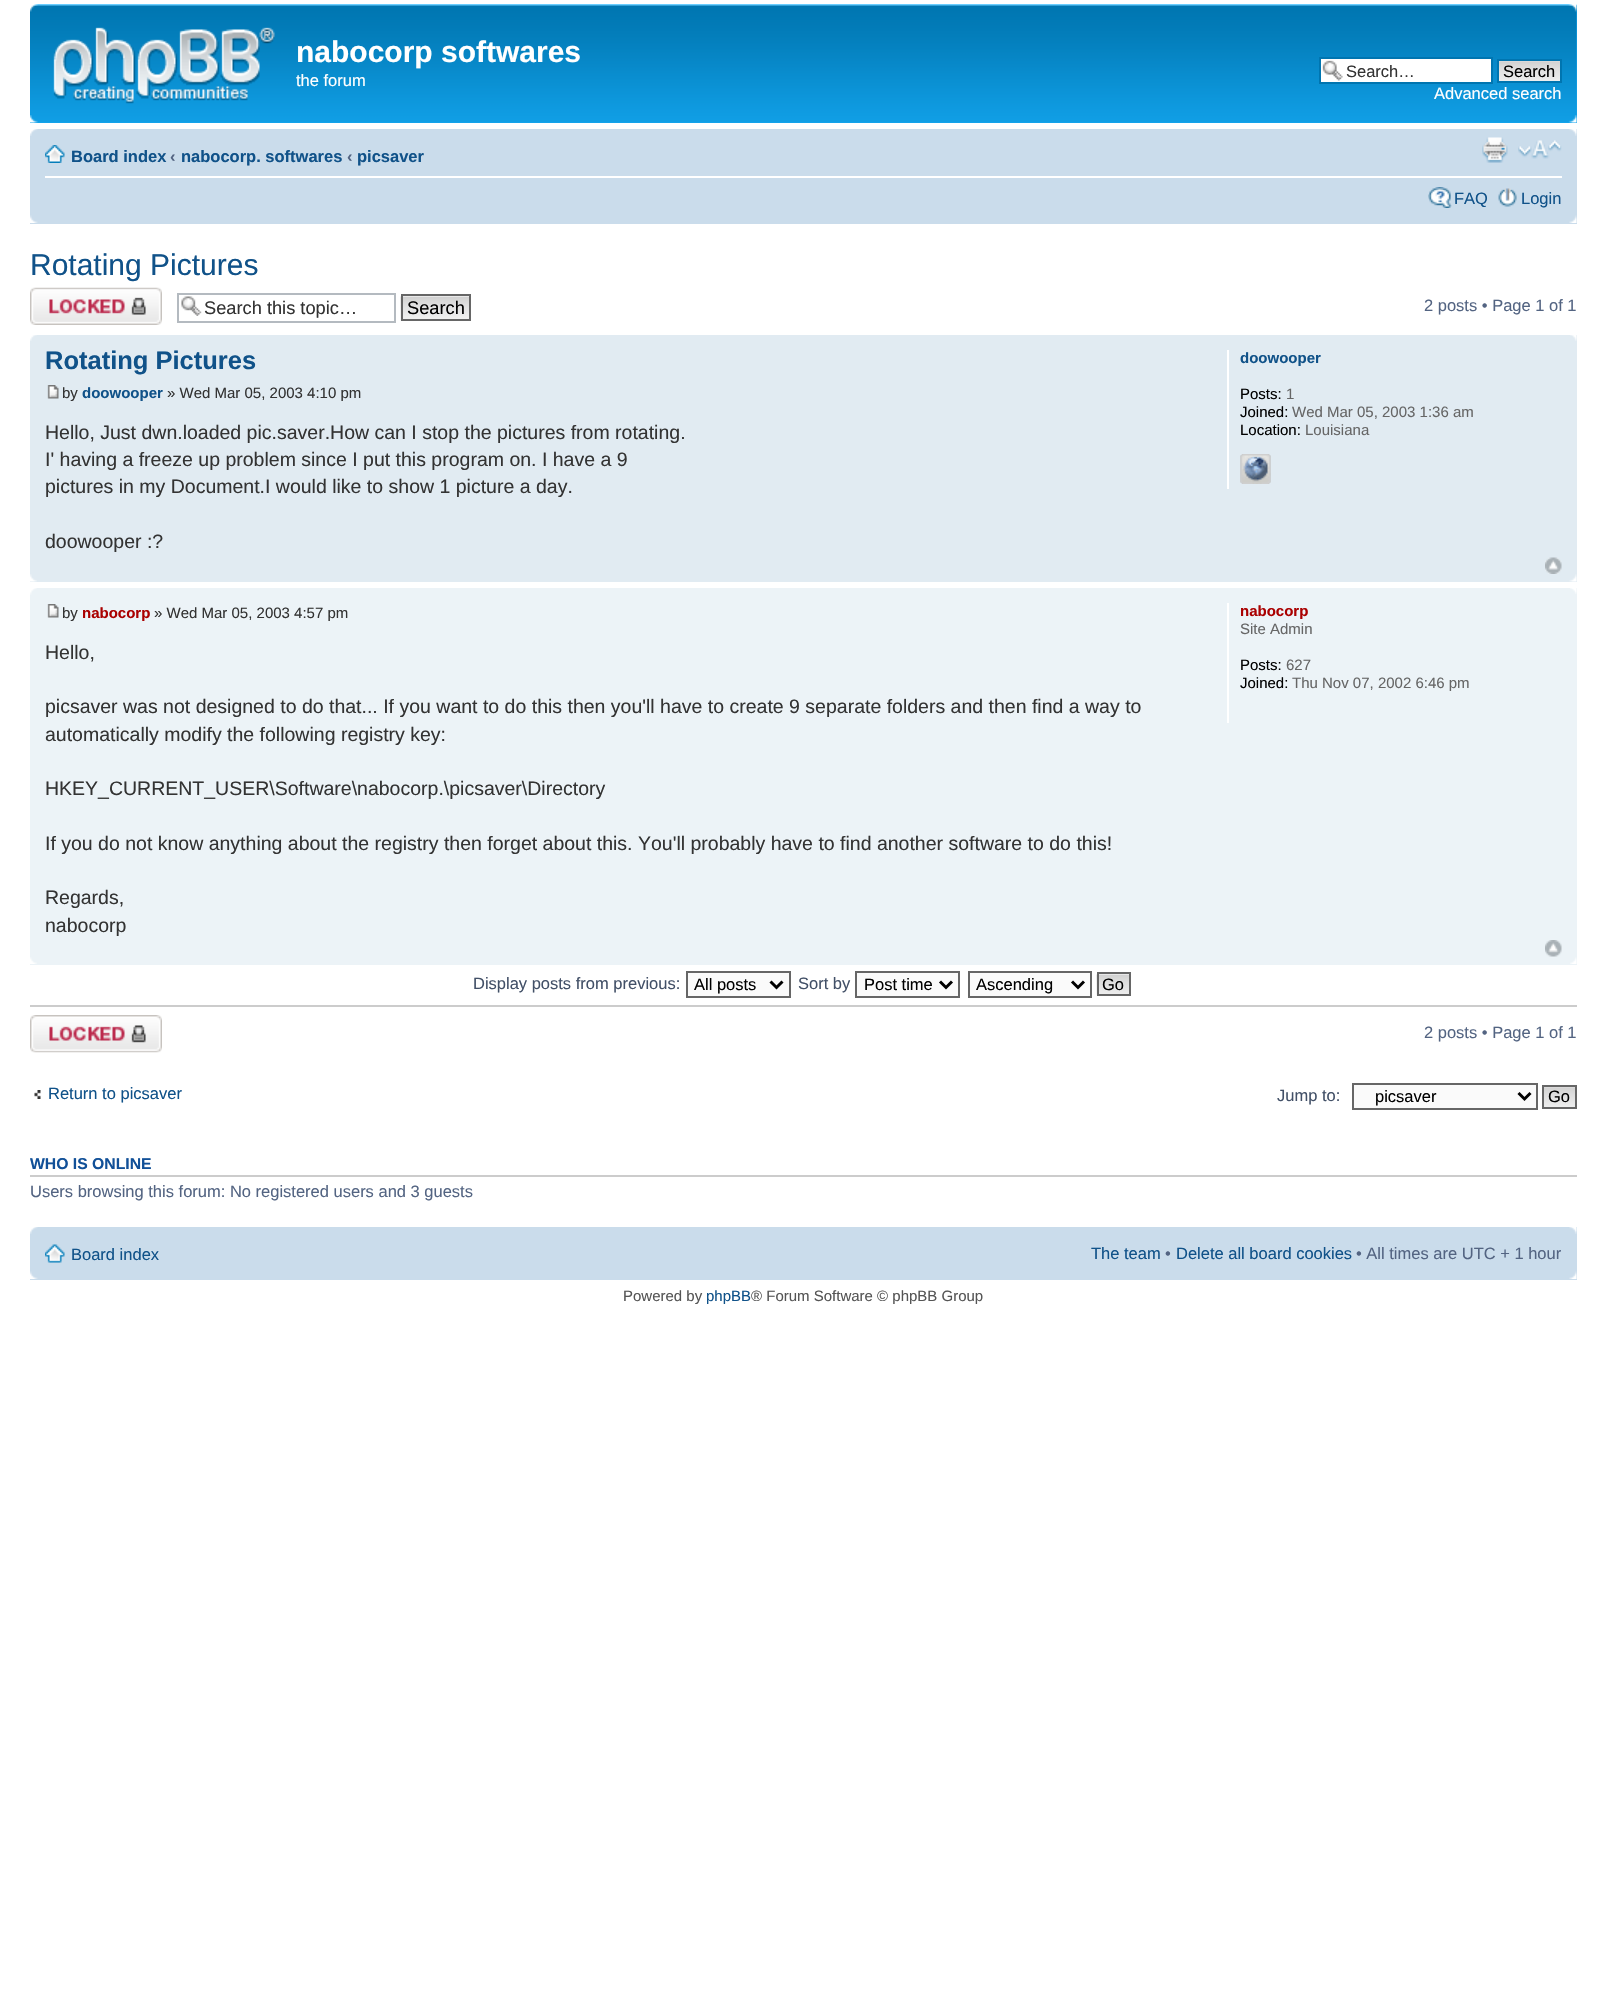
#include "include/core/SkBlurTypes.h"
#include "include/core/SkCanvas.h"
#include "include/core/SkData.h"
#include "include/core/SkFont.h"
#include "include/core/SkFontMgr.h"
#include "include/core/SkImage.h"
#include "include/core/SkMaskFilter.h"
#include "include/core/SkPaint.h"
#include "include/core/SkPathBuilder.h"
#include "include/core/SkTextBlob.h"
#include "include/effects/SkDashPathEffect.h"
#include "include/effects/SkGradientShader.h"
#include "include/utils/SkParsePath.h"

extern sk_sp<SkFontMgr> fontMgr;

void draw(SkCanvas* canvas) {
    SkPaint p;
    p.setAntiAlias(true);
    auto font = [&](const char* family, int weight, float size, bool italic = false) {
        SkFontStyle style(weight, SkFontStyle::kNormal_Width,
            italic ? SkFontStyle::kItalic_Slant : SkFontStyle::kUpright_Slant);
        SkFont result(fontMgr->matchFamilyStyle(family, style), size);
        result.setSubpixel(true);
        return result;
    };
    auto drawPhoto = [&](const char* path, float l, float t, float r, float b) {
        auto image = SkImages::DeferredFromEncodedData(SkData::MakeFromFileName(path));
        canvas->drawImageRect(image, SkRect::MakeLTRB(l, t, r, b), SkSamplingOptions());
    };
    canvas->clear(0xFFFFFFFF);
    p.setColor(0xFF12A3EB);
    canvas->drawRect(SkRect::MakeLTRB(30, 5, 1577, 123), p);
    drawPhoto("media/1.png", 30, 4, 1577, 122);
    drawPhoto("media/2.png", 30, 4, 38, 12);
    drawPhoto("media/3.png", 1568, 4, 1577, 12);
    drawPhoto("media/4.png", 53, 27, 275, 104);
    auto font1 = font("Liberation Sans", 700, 30);
    p.setColor(0xFFFFFFFF);
    canvas->drawString("nabocorp softwares", 296, 62, font1, p);
    auto font2 = font("Liberation Sans", 400, 16.5f);
    canvas->drawString("the forum", 296, 86, font2, p);
    canvas->drawRect(SkRect::MakeLTRB(1321, 59, 1491, 82), p);
    drawPhoto("media/5.png", 1322, 60, 1343, 81);
    p.setStyle(SkPaint::kStroke_Style);
    p.setStrokeWidth(2);
    p.setColor(0xFF0075B0);
    canvas->drawRect(SkRect::MakeLTRB(1320, 58, 1492, 83), p);
    p.setStyle(SkPaint::kFill_Style);
    p.setColor(0xFF333333);
    canvas->drawString("Search…", 1346, 77, font2, p);
    drawPhoto("media/6.png", 1499, 61, 1560, 81);
    p.setStyle(SkPaint::kStroke_Style);
    p.setColor(0xFF0075B0);
    canvas->drawRect(SkRect::MakeLTRB(1498, 60, 1561, 82), p);
    p.setStyle(SkPaint::kFill_Style);
    p.setColor(0xFF000000);
    canvas->drawString("Search", 1503, 77, font2, p);
    p.setColor(0xFFFFFFFF);
    canvas->drawString("Advanced search", 1434, 99, font2, p);
    drawPhoto("media/7.png", 30, 115, 38, 123);
    drawPhoto("media/8.png", 1568, 115, 1577, 123);
    p.setColor(0xFFCADCEB);
    canvas->drawRect(SkRect::MakeLTRB(30, 129, 1577, 224), p);
    drawPhoto("media/9.png", 30, 129, 38, 136);
    drawPhoto("media/10.png", 1569, 129, 1577, 136);
    p.setColor(0xFFFFFFFF);
    canvas->drawRect(SkRect::MakeLTRB(45, 176, 1562, 178), p);
    drawPhoto("media/11.png", 45, 145, 65, 163);
    auto font3 = font("Liberation Sans", 700, 16.5f);
    p.setColor(0xFF105289);
    canvas->drawString("Board index", 71, 162, font3, p);
    p.setColor(0xFF536482);
    canvas->drawString("‹", 170, 162, font3, p);
    p.setColor(0xFF105289);
    canvas->drawString("nabocorp. softwares", 181, 162, font3, p);
    p.setColor(0xFF536482);
    canvas->drawString("‹", 347, 162, font3, p);
    p.setColor(0xFF105289);
    canvas->drawString("picsaver", 357, 162, font3, p);
    drawPhoto("media/12.png", 1482, 137, 1508, 163);
    drawPhoto("media/13.png", 1518, 140, 1562, 159);
    drawPhoto("media/14.png", 1428, 187, 1452, 208);
    canvas->drawString("FAQ", 1454, 204, font2, p);
    drawPhoto("media/15.png", 1498, 188, 1517, 207);
    canvas->drawString("Login", 1521, 204, font2, p);
    drawPhoto("media/16.png", 30, 215, 38, 223);
    drawPhoto("media/17.png", 1569, 215, 1577, 223);
    auto font4 = font("Liberation Sans", 400, 30);
    canvas->drawString("Rotating Pictures", 30, 275, font4, p);
    drawPhoto("media/18.png", 30, 287, 162, 325);
    drawPhoto("media/19.png", 181, 296, 202, 316);
    p.setStyle(SkPaint::kStroke_Style);
    p.setColor(0xFFB4BAC0);
    canvas->drawRect(SkRect::MakeLTRB(178, 294, 395, 322), p);
    auto font5 = font("Liberation Sans", 400, 18.25f);
    p.setStyle(SkPaint::kFill_Style);
    p.setColor(0xFF333333);
    canvas->drawString("Search this topic…", 204, 314, font5, p);
    drawPhoto("media/20.png", 400, 295, 469, 321);
    p.setStyle(SkPaint::kStroke_Style);
    p.setColor(0xFF666666);
    canvas->drawRect(SkRect::MakeLTRB(402, 295, 470, 320), p);
    p.setStyle(SkPaint::kFill_Style);
    p.setColor(0xFF000000);
    canvas->drawString("Search", 407, 314, font5, p);
    p.setColor(0xFF536482);
    canvas->drawString("2 posts • Page 1 of 1", 1424, 311, font2, p);
    p.setColor(0xFFE1EBF2);
    canvas->drawRect(SkRect::MakeLTRB(30, 335, 1577, 582), p);
    drawPhoto("media/21.png", 30, 335, 37, 341);
    drawPhoto("media/22.png", 1570, 335, 1577, 341);
    auto font6 = font("Liberation Sans", 700, 25.5f);
    p.setColor(0xFF105289);
    canvas->drawString("Rotating Pictures", 45, 369, font6, p);
    drawPhoto("media/23.png", 47, 385, 59, 399);
    auto font7 = font("Liberation Sans", 400, 15);
    p.setColor(0xFF333333);
    canvas->drawString("by", 62, 398, font7, p);
    auto font8 = font("Liberation Sans", 700, 15);
    p.setColor(0xFF105289);
    canvas->drawString("doowooper", 82, 398, font8, p);
    p.setColor(0xFF333333);
    canvas->drawString("» Wed Mar 05, 2003 4:10 pm", 167, 398, font7, p);
    auto font9 = font("Liberation Sans", 400, 19.5f);
    {
        const struct { const char* s; float x, y; } items[] = {
            {"Hello, Just dwn.loaded pic.saver.How can I stop the pictures from rotating.", 45, 439},
            {"I' having a freeze up problem since I put this program on. I have a 9", 45, 466},
            {"pictures in my Document.I would like to show 1 picture a day.", 45, 493},
            {"doowooper :?", 45, 548},
        };
        for (auto [s, x, y] : items) {
            canvas->drawString(s, x, y, font9, p);
        }
    }
    p.setColor(0xFFFFFFFF);
    canvas->drawRect(SkRect::MakeLTRB(1227, 350, 1229, 489), p);
    p.setColor(0xFF105289);
    canvas->drawString("doowooper", 1240, 363, font8, p);
    p.setColor(0xFF000000);
    canvas->drawString("Posts:", 1240, 399, font7, p);
    p.setColor(0xFF666666);
    canvas->drawString("1", 1286, 399, font7, p);
    p.setColor(0xFF000000);
    canvas->drawString("Joined:", 1240, 417, font7, p);
    p.setColor(0xFF666666);
    canvas->drawString("Wed Mar 05, 2003 1:36 am", 1292, 417, font7, p);
    p.setColor(0xFF000000);
    canvas->drawString("Location:", 1240, 435, font7, p);
    p.setColor(0xFF666666);
    canvas->drawString("Louisiana", 1305, 435, font7, p);
    drawPhoto("media/24.png", 1240, 454, 1271, 484);
    drawPhoto("media/25.png", 1240, 454, 1271, 484);
    drawPhoto("media/26.png", 1545, 557, 1562, 574);
    drawPhoto("media/27.png", 30, 574, 37, 582);
    drawPhoto("media/28.png", 1569, 574, 1577, 582);
    p.setColor(0xFFECF3F7);
    canvas->drawRect(SkRect::MakeLTRB(30, 588, 1577, 965), p);
    drawPhoto("media/29.png", 30, 588, 37, 595);
    drawPhoto("media/30.png", 1570, 588, 1577, 594);
    drawPhoto("media/31.png", 47, 604, 59, 618);
    p.setColor(0xFF333333);
    canvas->drawString("by", 62, 618, font7, p);
    p.setColor(0xFFAA0000);
    canvas->drawString("nabocorp", 82, 618, font8, p);
    p.setColor(0xFF333333);
    canvas->drawString("» Wed Mar 05, 2003 4:57 pm", 154, 618, font7, p);
    {
        const struct { const char* s; float x, y; } items[] = {
            {"Hello,", 45, 659},
            {"picsaver was not designed to do that... If you want to do this then you'll have to create 9 separate folders and then find a way to", 45, 713},
            {"automatically modify the following registry key:", 45, 741},
            {"HKEY_CURRENT_USER\\Software\\nabocorp.\\picsaver\\Directory", 45, 795},
            {"If you do not know anything about the registry then forget about this. You'll probably have to find another software to do this!", 45, 850},
            {"Regards,", 45, 904},
            {"nabocorp", 45, 932},
        };
        for (auto [s, x, y] : items) {
            canvas->drawString(s, x, y, font9, p);
        }
    }
    p.setColor(0xFFFFFFFF);
    canvas->drawRect(SkRect::MakeLTRB(1227, 603, 1229, 723), p);
    p.setColor(0xFFAA0000);
    canvas->drawString("nabocorp", 1240, 616, font8, p);
    p.setColor(0xFF666666);
    canvas->drawString("Site Admin", 1240, 634, font7, p);
    p.setColor(0xFF000000);
    canvas->drawString("Posts:", 1240, 670, font7, p);
    p.setColor(0xFF666666);
    canvas->drawString("627", 1286, 670, font7, p);
    p.setColor(0xFF000000);
    canvas->drawString("Joined:", 1240, 688, font7, p);
    p.setColor(0xFF666666);
    canvas->drawString("Thu Nov 07, 2002 6:46 pm", 1292, 688, font7, p);
    drawPhoto("media/32.png", 1545, 940, 1562, 957);
    drawPhoto("media/33.png", 30, 957, 37, 964);
    drawPhoto("media/34.png", 1570, 957, 1577, 964);
    p.setColor(0xFF425067);
    canvas->drawString("Display posts from previous:", 473, 989, font2, p);
    p.setColor(0xFFFAFAFA);
    canvas->drawRect(SkRect::MakeLTRB(687, 972, 790, 997), p);
    p.setStyle(SkPaint::kStroke_Style);
    p.setColor(0xFF666666);
    canvas->drawRect(SkRect::MakeLTRB(687, 972, 790, 997), p);
    p.setStrokeWidth(3);
    p.setColor(0xFF000000);
    canvas->drawPath(SkPathBuilder().moveTo(770.5f, 981.5f).lineTo(776.5f, 987.5f).lineTo(782.5f, 981.5f).detach(), p);
    p.setStyle(SkPaint::kFill_Style);
    canvas->drawString("All posts", 694, 990, font2, p);
    p.setColor(0xFF425067);
    canvas->drawString("Sort by", 798, 989, font2, p);
    p.setColor(0xFFFAFAFA);
    canvas->drawRect(SkRect::MakeLTRB(856, 972, 959, 997), p);
    p.setStyle(SkPaint::kStroke_Style);
    p.setStrokeWidth(2);
    p.setColor(0xFF666666);
    canvas->drawRect(SkRect::MakeLTRB(856, 972, 959, 997), p);
    p.setStrokeWidth(3);
    p.setColor(0xFF000000);
    canvas->drawPath(SkPathBuilder().moveTo(940, 981.5f).lineTo(946, 987.5f).lineTo(952, 981.5f).detach(), p);
    p.setStyle(SkPaint::kFill_Style);
    canvas->drawString("Post time", 864, 990, font2, p);
    p.setColor(0xFFFAFAFA);
    canvas->drawRect(SkRect::MakeLTRB(969, 972, 1091, 997), p);
    p.setStyle(SkPaint::kStroke_Style);
    p.setStrokeWidth(2);
    p.setColor(0xFF666666);
    canvas->drawRect(SkRect::MakeLTRB(969, 972, 1091, 997), p);
    p.setStrokeWidth(3);
    p.setColor(0xFF000000);
    canvas->drawPath(SkPathBuilder().moveTo(1072, 981.5f).lineTo(1078, 987.5f).lineTo(1084, 981.5f).detach(), p);
    p.setStyle(SkPaint::kFill_Style);
    canvas->drawString("Ascending", 976, 990, font2, p);
    drawPhoto("media/35.png", 1096, 973, 1129, 996);
    p.setStyle(SkPaint::kStroke_Style);
    p.setStrokeWidth(2);
    p.setColor(0xFF666666);
    canvas->drawRect(SkRect::MakeLTRB(1098, 973, 1130, 995), p);
    p.setStyle(SkPaint::kFill_Style);
    p.setColor(0xFF000000);
    canvas->drawString("Go", 1102, 990, font2, p);
    p.setColor(0xFFCCCCCC);
    canvas->drawRect(SkRect::MakeLTRB(30, 1005, 1577, 1007), p);
    drawPhoto("media/36.png", 30, 1015, 162, 1053);
    p.setColor(0xFF536482);
    canvas->drawString("2 posts • Page 1 of 1", 1424, 1038, font2, p);
    drawPhoto("media/37.png", 34, 1090, 41, 1099);
    p.setColor(0xFF105289);
    canvas->drawString("Return to picsaver", 48, 1099, font2, p);
    p.setColor(0xFF425067);
    canvas->drawString("Jump to:", 1277, 1101, font2, p);
    p.setColor(0xFFFAFAFA);
    canvas->drawRect(SkRect::MakeLTRB(1353, 1084, 1537, 1109), p);
    p.setStyle(SkPaint::kStroke_Style);
    p.setColor(0xFF666666);
    canvas->drawRect(SkRect::MakeLTRB(1353, 1084, 1537, 1109), p);
    p.setStrokeWidth(3);
    p.setColor(0xFF000000);
    canvas->drawPath(SkPathBuilder().moveTo(1518.5f, 1093).lineTo(1524.5f, 1099).lineTo(1530.5f, 1093).detach(), p);
    p.setStyle(SkPaint::kFill_Style);
    canvas->drawString("picsaver", 1375, 1102, font2, p);
    drawPhoto("media/38.png", 1544, 1087, 1575, 1107);
    p.setStyle(SkPaint::kStroke_Style);
    p.setStrokeWidth(2);
    p.setColor(0xFF666666);
    canvas->drawRect(SkRect::MakeLTRB(1543, 1086, 1576, 1108), p);
    p.setStyle(SkPaint::kFill_Style);
    p.setColor(0xFF000000);
    canvas->drawString("Go", 1548, 1102, font2, p);
    p.setColor(0xFFCCCCCC);
    canvas->drawRect(SkRect::MakeLTRB(30, 1175, 1577, 1177), p);
    auto font10 = font("Liberation Sans", 700, 15.75f);
    p.setColor(0xFF115098);
    canvas->drawString("WHO IS ONLINE", 30, 1169, font10, p);
    p.setColor(0xFF536482);
    canvas->drawString("Users browsing this forum: No registered users and 3 guests", 30, 1197, font2, p);
    p.setColor(0xFFCADCEB);
    canvas->drawRect(SkRect::MakeLTRB(30, 1227, 1577, 1280), p);
    drawPhoto("media/9.png", 30, 1227, 38, 1234);
    drawPhoto("media/10.png", 1569, 1227, 1577, 1234);
    drawPhoto("media/39.png", 45, 1244, 65, 1263);
    p.setColor(0xFF105289);
    canvas->drawString("Board index", 71, 1260, font2, p);
    canvas->drawString("The team", 1091, 1259, font2, p);
    p.setColor(0xFF536482);
    canvas->drawString("•", 1165, 1259, font2, p);
    p.setColor(0xFF105289);
    canvas->drawString("Delete all board cookies", 1176, 1259, font2, p);
    p.setColor(0xFF536482);
    canvas->drawString("• All times are UTC + 1 hour", 1356, 1259, font2, p);
    drawPhoto("media/16.png", 30, 1271, 38, 1279);
    drawPhoto("media/17.png", 1569, 1271, 1577, 1279);
    p.setColor(0xFF555555);
    canvas->drawString("Powered by", 623, 1301, font7, p);
    p.setColor(0xFF105289);
    canvas->drawString("phpBB", 706, 1301, font7, p);
    p.setColor(0xFF555555);
    canvas->drawString("® Forum Software © phpBB Group", 751, 1301, font7, p);
}
